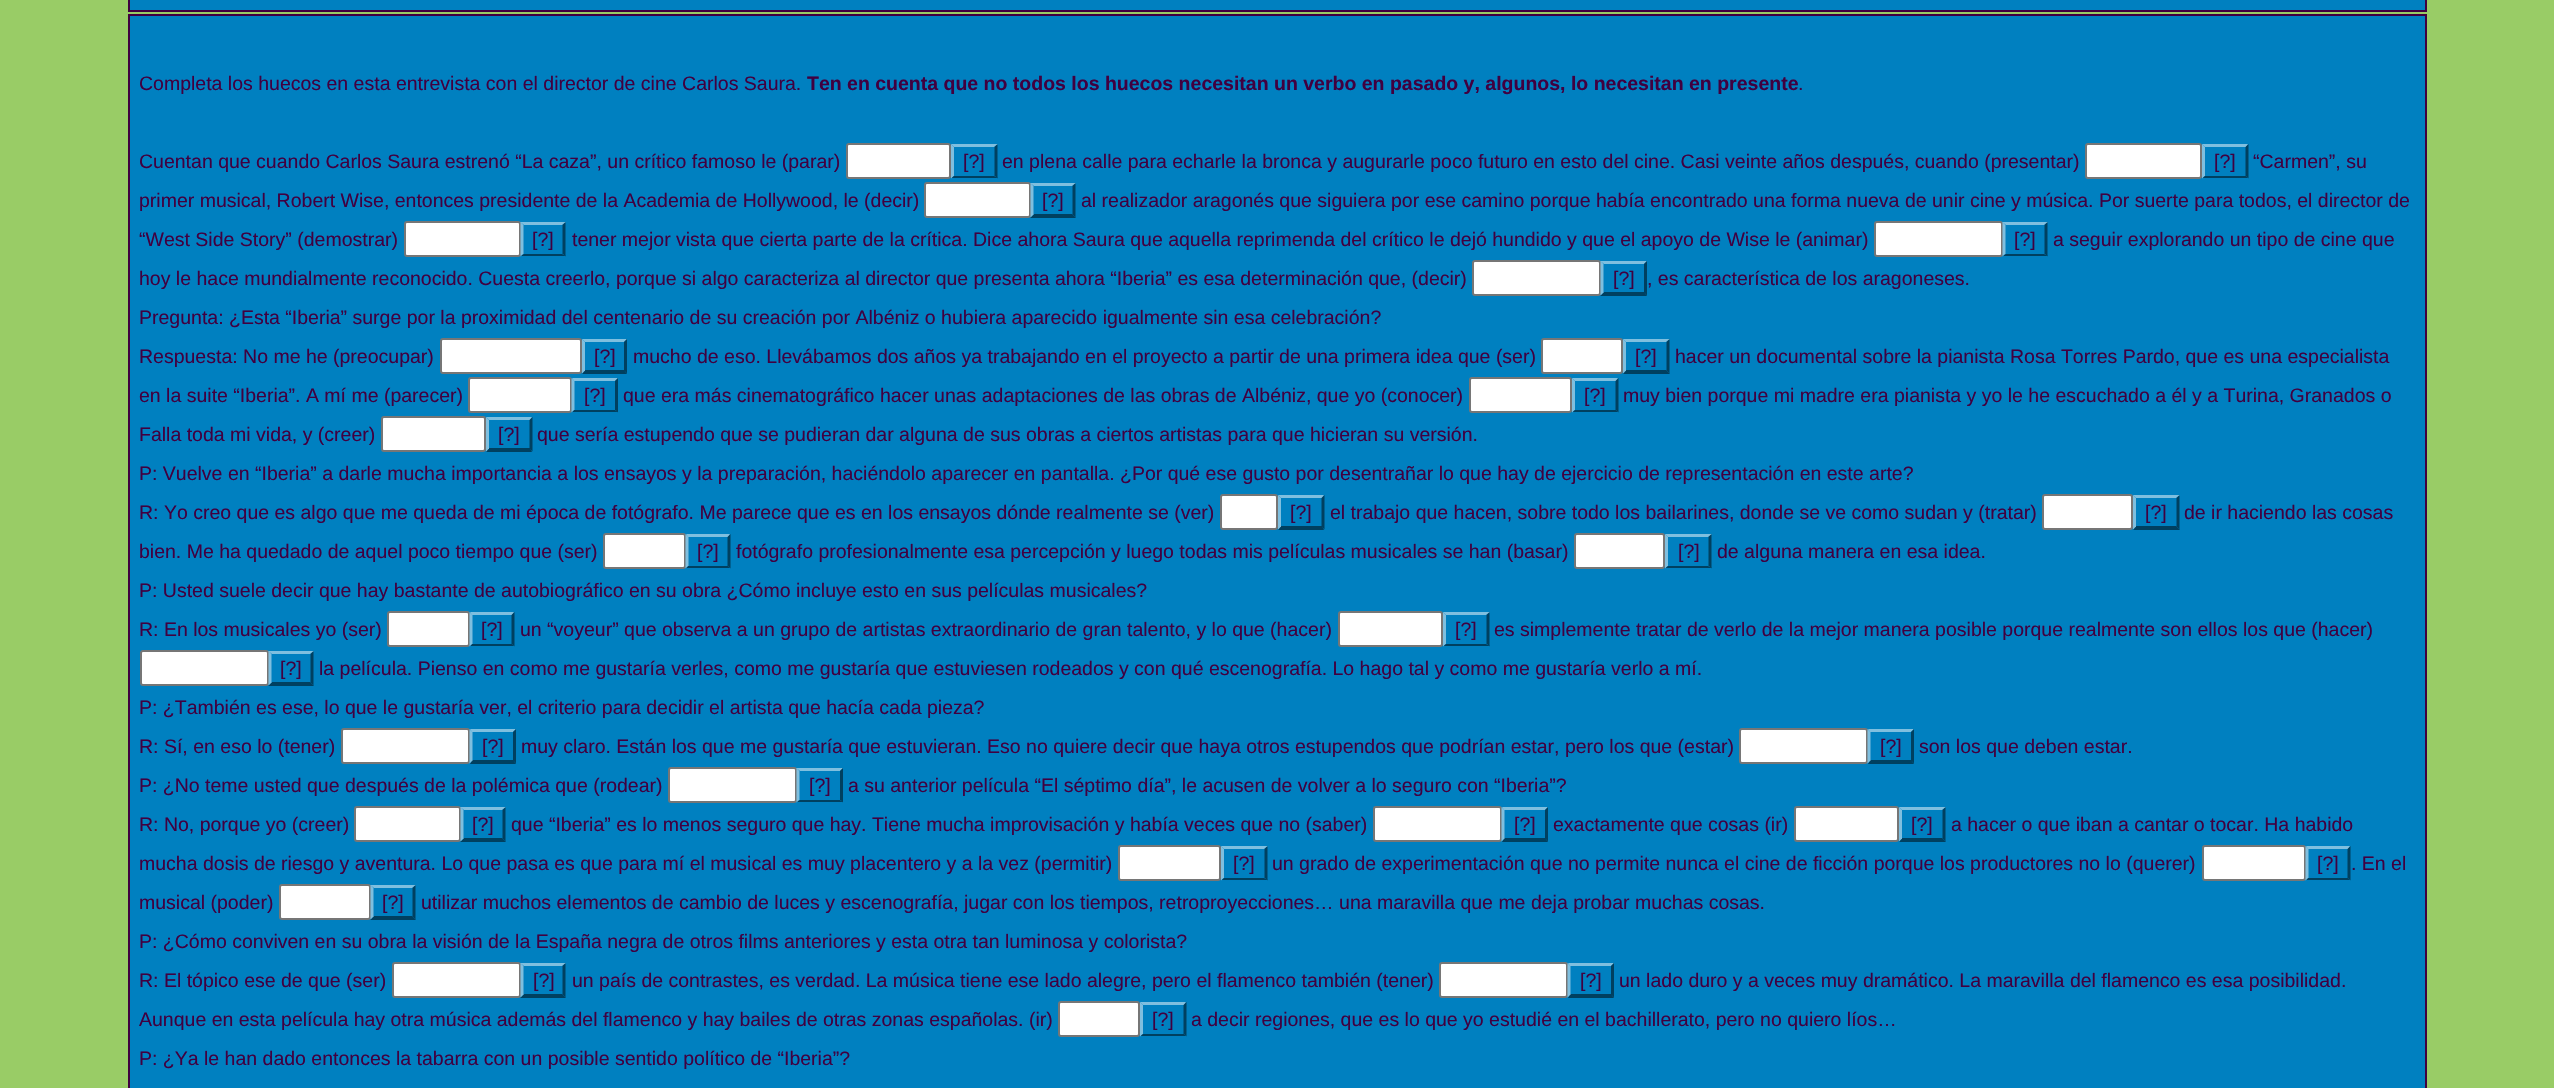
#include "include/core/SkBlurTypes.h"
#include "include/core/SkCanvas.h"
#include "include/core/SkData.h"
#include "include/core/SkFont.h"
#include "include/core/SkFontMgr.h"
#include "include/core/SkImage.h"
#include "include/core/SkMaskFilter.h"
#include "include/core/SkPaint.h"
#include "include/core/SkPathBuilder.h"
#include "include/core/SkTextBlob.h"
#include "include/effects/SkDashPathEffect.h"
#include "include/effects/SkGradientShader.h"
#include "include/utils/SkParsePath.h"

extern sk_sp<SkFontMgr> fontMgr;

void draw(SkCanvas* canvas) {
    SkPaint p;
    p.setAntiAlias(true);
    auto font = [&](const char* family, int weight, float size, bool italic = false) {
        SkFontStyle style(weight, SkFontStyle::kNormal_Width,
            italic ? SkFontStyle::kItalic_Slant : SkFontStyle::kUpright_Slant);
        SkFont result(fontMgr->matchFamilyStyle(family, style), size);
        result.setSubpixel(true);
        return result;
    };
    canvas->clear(0xFF99CC66);
    p.setColor(0xFF0080C0);
    canvas->drawRect(SkRect::MakeLTRB(129, -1, 2426, 11), p);
    p.setStyle(SkPaint::kStroke_Style);
    p.setStrokeWidth(2);
    p.setColor(0xFF400040);
    canvas->drawRect(SkRect::MakeLTRB(129, -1, 2426, 11), p);
    p.setStyle(SkPaint::kFill_Style);
    p.setColor(0xFF0080C0);
    canvas->drawRect(SkRect::MakeLTRB(129, 15, 2426, 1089), p);
    p.setStyle(SkPaint::kStroke_Style);
    p.setColor(0xFF400040);
    canvas->drawRect(SkRect::MakeLTRB(129, 15, 2426, 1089), p);
    auto font1 = font("Liberation Sans", 400, 19.5f);
    p.setStyle(SkPaint::kFill_Style);
    canvas->drawString("Completa los huecos en esta entrevista con el director de cine Carlos Saura.", 139, 90, font1, p);
    auto font2 = font("Liberation Sans", 700, 19.5f);
    canvas->drawString("Ten en cuenta que no todos los huecos necesitan un verbo en pasado y, algunos, lo necesitan en presente", 807, 90, font2, p);
    canvas->drawString(".", 1798, 90, font1, p);
    canvas->drawString("Cuentan que cuando Carlos Saura estrenó “La caza”, un crítico famoso le (parar)", 139, 168, font1, p);
    p.setColor(0xFFFFFFFF);
    canvas->drawRoundRect(SkRect::MakeLTRB(847, 144, 950, 178), 2, 2, p);
    p.setStyle(SkPaint::kStroke_Style);
    p.setColor(0xFF767676);
    canvas->drawRoundRect(SkRect::MakeLTRB(847, 144, 950, 178), 2, 2, p);
    p.setStyle(SkPaint::kFill_Style);
    p.setColor(0xFF7FBFDF);
    canvas->drawPath(SkPathBuilder().moveTo(951, 144).lineTo(998, 144).lineTo(994, 147).lineTo(954, 147).close().detach(), p);
    p.setColor(0xFF004060);
    canvas->drawPath(SkPathBuilder().moveTo(997.5f, 144).lineTo(997.5f, 178.5f).lineTo(994.5f, 175.5f).lineTo(994.5f, 147).close().detach(), p);
    canvas->drawPath(SkPathBuilder().moveTo(998, 178).lineTo(951, 178).lineTo(954, 176).lineTo(994, 176).close().detach(), p);
    p.setColor(0xFF7FBFDF);
    canvas->drawPath(SkPathBuilder().moveTo(951, 178.5f).lineTo(951, 144).lineTo(954, 147).lineTo(954, 175.5f).close().detach(), p);
    p.setColor(0xFF400040);
    canvas->drawString("[?]", 963, 168, font1, p);
    canvas->drawString("en plena calle para echarle la bronca y augurarle poco futuro en esto del cine. Casi veinte años después, cuando (presentar)", 1002, 168, font1, p);
    p.setColor(0xFFFFFFFF);
    canvas->drawRoundRect(SkRect::MakeLTRB(2086, 144, 2201, 178), 2, 2, p);
    p.setStyle(SkPaint::kStroke_Style);
    p.setColor(0xFF767676);
    canvas->drawRoundRect(SkRect::MakeLTRB(2086, 144, 2201, 178), 2, 2, p);
    p.setStyle(SkPaint::kFill_Style);
    p.setColor(0xFF7FBFDF);
    canvas->drawPath(SkPathBuilder().moveTo(2202, 144).lineTo(2248, 144).lineTo(2246, 147).lineTo(2205, 147).close().detach(), p);
    p.setColor(0xFF004060);
    canvas->drawPath(SkPathBuilder().moveTo(2248.5f, 144).lineTo(2248.5f, 178.5f).lineTo(2245.5f, 175.5f).lineTo(2245.5f, 147).close().detach(), p);
    canvas->drawPath(SkPathBuilder().moveTo(2248, 178).lineTo(2202, 178).lineTo(2205, 176).lineTo(2246, 176).close().detach(), p);
    p.setColor(0xFF7FBFDF);
    canvas->drawPath(SkPathBuilder().moveTo(2202, 178.5f).lineTo(2202, 144).lineTo(2205, 147).lineTo(2205, 175.5f).close().detach(), p);
    p.setColor(0xFF400040);
    {
        const struct { const char* s; float x, y; } items[] = {
            {"[?]", 2214, 168},
            {"“Carmen”, su", 2253, 168},
            {"primer musical, Robert Wise, entonces presidente de la Academia de Hollywood, le (decir)", 139, 207},
        };
        for (auto [s, x, y] : items) {
            canvas->drawString(s, x, y, font1, p);
        }
    }
    p.setColor(0xFFFFFFFF);
    canvas->drawRoundRect(SkRect::MakeLTRB(925, 183, 1030, 217), 2, 2, p);
    p.setStyle(SkPaint::kStroke_Style);
    p.setColor(0xFF767676);
    canvas->drawRoundRect(SkRect::MakeLTRB(925, 183, 1030, 217), 2, 2, p);
    p.setStyle(SkPaint::kFill_Style);
    p.setColor(0xFF7FBFDF);
    canvas->drawPath(SkPathBuilder().moveTo(1030, 183).lineTo(1076, 183).lineTo(1072, 186).lineTo(1034, 186).close().detach(), p);
    p.setColor(0xFF004060);
    canvas->drawPath(SkPathBuilder().moveTo(1075.5f, 183).lineTo(1075.5f, 217.5f).lineTo(1072.5f, 214.5f).lineTo(1072.5f, 186).close().detach(), p);
    canvas->drawPath(SkPathBuilder().moveTo(1076, 218).lineTo(1030, 218).lineTo(1034, 214).lineTo(1072, 214).close().detach(), p);
    p.setColor(0xFF7FBFDF);
    canvas->drawPath(SkPathBuilder().moveTo(1030.5f, 217.5f).lineTo(1030.5f, 183).lineTo(1033.5f, 186).lineTo(1033.5f, 214.5f).close().detach(), p);
    p.setColor(0xFF400040);
    {
        const struct { const char* s; float x, y; } items[] = {
            {"[?]", 1042, 207},
            {"al realizador aragonés que siguiera por ese camino porque había encontrado una forma nueva de unir cine y música. Por suerte para todos, el director de", 1081, 207},
            {"“West Side Story” (demostrar)", 139, 246},
        };
        for (auto [s, x, y] : items) {
            canvas->drawString(s, x, y, font1, p);
        }
    }
    p.setColor(0xFFFFFFFF);
    canvas->drawRoundRect(SkRect::MakeLTRB(405, 222, 520, 256), 2, 2, p);
    p.setStyle(SkPaint::kStroke_Style);
    p.setColor(0xFF767676);
    canvas->drawRoundRect(SkRect::MakeLTRB(405, 222, 520, 256), 2, 2, p);
    p.setStyle(SkPaint::kFill_Style);
    p.setColor(0xFF7FBFDF);
    canvas->drawPath(SkPathBuilder().moveTo(520, 222).lineTo(566, 222).lineTo(562, 225).lineTo(524, 225).close().detach(), p);
    p.setColor(0xFF004060);
    canvas->drawPath(SkPathBuilder().moveTo(565.5f, 222).lineTo(565.5f, 256.5f).lineTo(562.5f, 253.5f).lineTo(562.5f, 225).close().detach(), p);
    canvas->drawPath(SkPathBuilder().moveTo(566, 256).lineTo(520, 256).lineTo(524, 254).lineTo(562, 254).close().detach(), p);
    p.setColor(0xFF7FBFDF);
    canvas->drawPath(SkPathBuilder().moveTo(520.5f, 256.5f).lineTo(520.5f, 222).lineTo(523.5f, 225).lineTo(523.5f, 253.5f).close().detach(), p);
    p.setColor(0xFF400040);
    canvas->drawString("[?]", 532, 246, font1, p);
    canvas->drawString("tener mejor vista que cierta parte de la crítica. Dice ahora Saura que aquella reprimenda del crítico le dejó hundido y que el apoyo de Wise le (animar)", 572, 246, font1, p);
    p.setColor(0xFFFFFFFF);
    canvas->drawRoundRect(SkRect::MakeLTRB(1875, 222, 2002, 256), 2, 2, p);
    p.setStyle(SkPaint::kStroke_Style);
    p.setColor(0xFF767676);
    canvas->drawRoundRect(SkRect::MakeLTRB(1875, 222, 2002, 256), 2, 2, p);
    p.setStyle(SkPaint::kFill_Style);
    p.setColor(0xFF7FBFDF);
    canvas->drawPath(SkPathBuilder().moveTo(2002, 222).lineTo(2048, 222).lineTo(2044, 225).lineTo(2006, 225).close().detach(), p);
    p.setColor(0xFF004060);
    canvas->drawPath(SkPathBuilder().moveTo(2047.5f, 222).lineTo(2047.5f, 256.5f).lineTo(2044.5f, 253.5f).lineTo(2044.5f, 225).close().detach(), p);
    canvas->drawPath(SkPathBuilder().moveTo(2048, 256).lineTo(2002, 256).lineTo(2006, 254).lineTo(2044, 254).close().detach(), p);
    p.setColor(0xFF7FBFDF);
    canvas->drawPath(SkPathBuilder().moveTo(2002.5f, 256.5f).lineTo(2002.5f, 222).lineTo(2005.5f, 225).lineTo(2005.5f, 253.5f).close().detach(), p);
    p.setColor(0xFF400040);
    {
        const struct { const char* s; float x, y; } items[] = {
            {"[?]", 2014, 246},
            {"a seguir explorando un tipo de cine que", 2053, 246},
            {"hoy le hace mundialmente reconocido. Cuesta creerlo, porque si algo caracteriza al director que presenta ahora “Iberia” es esa determinación que, (decir)", 139, 285},
        };
        for (auto [s, x, y] : items) {
            canvas->drawString(s, x, y, font1, p);
        }
    }
    p.setColor(0xFFFFFFFF);
    canvas->drawRoundRect(SkRect::MakeLTRB(1473, 261, 1600, 295), 2, 2, p);
    p.setStyle(SkPaint::kStroke_Style);
    p.setColor(0xFF767676);
    canvas->drawRoundRect(SkRect::MakeLTRB(1473, 261, 1600, 295), 2, 2, p);
    p.setStyle(SkPaint::kFill_Style);
    p.setColor(0xFF7FBFDF);
    canvas->drawPath(SkPathBuilder().moveTo(1600, 261).lineTo(1647, 261).lineTo(1644, 264).lineTo(1604, 264).close().detach(), p);
    p.setColor(0xFF004060);
    canvas->drawPath(SkPathBuilder().moveTo(1647, 261).lineTo(1647, 295.5f).lineTo(1644, 292.5f).lineTo(1644, 264).close().detach(), p);
    canvas->drawPath(SkPathBuilder().moveTo(1647, 296).lineTo(1600, 296).lineTo(1604, 292).lineTo(1644, 292).close().detach(), p);
    p.setColor(0xFF7FBFDF);
    canvas->drawPath(SkPathBuilder().moveTo(1600.5f, 295.5f).lineTo(1600.5f, 261).lineTo(1603.5f, 264).lineTo(1603.5f, 292.5f).close().detach(), p);
    p.setColor(0xFF400040);
    {
        const struct { const char* s; float x, y; } items[] = {
            {"[?]", 1613, 285},
            {", es característica de los aragoneses.", 1647, 285},
            {"Pregunta: ¿Esta “Iberia” surge por la proximidad del centenario de su creación por Albéniz o hubiera aparecido igualmente sin esa celebración?", 139, 324},
            {"Respuesta: No me he (preocupar)", 139, 363},
        };
        for (auto [s, x, y] : items) {
            canvas->drawString(s, x, y, font1, p);
        }
    }
    p.setColor(0xFFFFFFFF);
    canvas->drawRoundRect(SkRect::MakeLTRB(441, 339, 581, 373), 2, 2, p);
    p.setStyle(SkPaint::kStroke_Style);
    p.setColor(0xFF767676);
    canvas->drawRoundRect(SkRect::MakeLTRB(441, 339, 581, 373), 2, 2, p);
    p.setStyle(SkPaint::kFill_Style);
    p.setColor(0xFF7FBFDF);
    canvas->drawPath(SkPathBuilder().moveTo(582, 339).lineTo(627, 339).lineTo(624, 342).lineTo(585, 342).close().detach(), p);
    p.setColor(0xFF004060);
    canvas->drawPath(SkPathBuilder().moveTo(627, 339).lineTo(627, 373.5f).lineTo(624, 370.5f).lineTo(624, 342).close().detach(), p);
    canvas->drawPath(SkPathBuilder().moveTo(627, 374).lineTo(582, 374).lineTo(585, 370).lineTo(624, 370).close().detach(), p);
    p.setColor(0xFF7FBFDF);
    canvas->drawPath(SkPathBuilder().moveTo(582, 373.5f).lineTo(582, 339).lineTo(585, 342).lineTo(585, 370.5f).close().detach(), p);
    p.setColor(0xFF400040);
    canvas->drawString("[?]", 594, 363, font1, p);
    canvas->drawString("mucho de eso. Llevábamos dos años ya trabajando en el proyecto a partir de una primera idea que (ser)", 633, 363, font1, p);
    p.setColor(0xFFFFFFFF);
    canvas->drawRoundRect(SkRect::MakeLTRB(1542, 339, 1622, 373), 2, 2, p);
    p.setStyle(SkPaint::kStroke_Style);
    p.setColor(0xFF767676);
    canvas->drawRoundRect(SkRect::MakeLTRB(1542, 339, 1622, 373), 2, 2, p);
    p.setStyle(SkPaint::kFill_Style);
    p.setColor(0xFF7FBFDF);
    canvas->drawPath(SkPathBuilder().moveTo(1623, 339).lineTo(1670, 339).lineTo(1666, 342).lineTo(1626, 342).close().detach(), p);
    p.setColor(0xFF004060);
    canvas->drawPath(SkPathBuilder().moveTo(1669.5f, 339).lineTo(1669.5f, 373.5f).lineTo(1666.5f, 370.5f).lineTo(1666.5f, 342).close().detach(), p);
    canvas->drawPath(SkPathBuilder().moveTo(1670, 374).lineTo(1623, 374).lineTo(1626, 370).lineTo(1666, 370).close().detach(), p);
    p.setColor(0xFF7FBFDF);
    canvas->drawPath(SkPathBuilder().moveTo(1623, 373.5f).lineTo(1623, 339).lineTo(1626, 342).lineTo(1626, 370.5f).close().detach(), p);
    p.setColor(0xFF400040);
    {
        const struct { const char* s; float x, y; } items[] = {
            {"[?]", 1635, 363},
            {"hacer un documental sobre la pianista Rosa Torres Pardo, que es una especialista", 1675, 363},
            {"en la suite “Iberia”. A mí me (parecer)", 139, 402},
        };
        for (auto [s, x, y] : items) {
            canvas->drawString(s, x, y, font1, p);
        }
    }
    p.setColor(0xFFFFFFFF);
    canvas->drawRoundRect(SkRect::MakeLTRB(469, 378, 571, 412), 2, 2, p);
    p.setStyle(SkPaint::kStroke_Style);
    p.setColor(0xFF767676);
    canvas->drawRoundRect(SkRect::MakeLTRB(469, 378, 571, 412), 2, 2, p);
    p.setStyle(SkPaint::kFill_Style);
    p.setColor(0xFF7FBFDF);
    canvas->drawPath(SkPathBuilder().moveTo(572, 378).lineTo(618, 378).lineTo(615, 381).lineTo(574, 381).close().detach(), p);
    p.setColor(0xFF004060);
    canvas->drawPath(SkPathBuilder().moveTo(618, 378).lineTo(618, 412.5f).lineTo(615, 409.5f).lineTo(615, 381).close().detach(), p);
    canvas->drawPath(SkPathBuilder().moveTo(618, 412).lineTo(572, 412).lineTo(574, 410).lineTo(615, 410).close().detach(), p);
    p.setColor(0xFF7FBFDF);
    canvas->drawPath(SkPathBuilder().moveTo(571.5f, 412.5f).lineTo(571.5f, 378).lineTo(574.5f, 381).lineTo(574.5f, 409.5f).close().detach(), p);
    p.setColor(0xFF400040);
    canvas->drawString("[?]", 584, 402, font1, p);
    canvas->drawString("que era más cinematográfico hacer unas adaptaciones de las obras de Albéniz, que yo (conocer)", 623, 402, font1, p);
    p.setColor(0xFFFFFFFF);
    canvas->drawRoundRect(SkRect::MakeLTRB(1470, 378, 1571, 412), 2, 2, p);
    p.setStyle(SkPaint::kStroke_Style);
    p.setColor(0xFF767676);
    canvas->drawRoundRect(SkRect::MakeLTRB(1470, 378, 1571, 412), 2, 2, p);
    p.setStyle(SkPaint::kFill_Style);
    p.setColor(0xFF7FBFDF);
    canvas->drawPath(SkPathBuilder().moveTo(1572, 378).lineTo(1618, 378).lineTo(1616, 381).lineTo(1575, 381).close().detach(), p);
    p.setColor(0xFF004060);
    canvas->drawPath(SkPathBuilder().moveTo(1618.5f, 378).lineTo(1618.5f, 412.5f).lineTo(1615.5f, 409.5f).lineTo(1615.5f, 381).close().detach(), p);
    canvas->drawPath(SkPathBuilder().moveTo(1618, 412).lineTo(1572, 412).lineTo(1575, 410).lineTo(1616, 410).close().detach(), p);
    p.setColor(0xFF7FBFDF);
    canvas->drawPath(SkPathBuilder().moveTo(1572, 412.5f).lineTo(1572, 378).lineTo(1575, 381).lineTo(1575, 409.5f).close().detach(), p);
    p.setColor(0xFF400040);
    {
        const struct { const char* s; float x, y; } items[] = {
            {"[?]", 1584, 402},
            {"muy bien porque mi madre era pianista y yo le he escuchado a él y a Turina, Granados o", 1623, 402},
            {"Falla toda mi vida, y (creer)", 139, 441},
        };
        for (auto [s, x, y] : items) {
            canvas->drawString(s, x, y, font1, p);
        }
    }
    p.setColor(0xFFFFFFFF);
    canvas->drawRoundRect(SkRect::MakeLTRB(382, 417, 485, 451), 2, 2, p);
    p.setStyle(SkPaint::kStroke_Style);
    p.setColor(0xFF767676);
    canvas->drawRoundRect(SkRect::MakeLTRB(382, 417, 485, 451), 2, 2, p);
    p.setStyle(SkPaint::kFill_Style);
    p.setColor(0xFF7FBFDF);
    canvas->drawPath(SkPathBuilder().moveTo(486, 417).lineTo(532, 417).lineTo(530, 420).lineTo(489, 420).close().detach(), p);
    p.setColor(0xFF004060);
    canvas->drawPath(SkPathBuilder().moveTo(532.5f, 417).lineTo(532.5f, 451.5f).lineTo(529.5f, 448.5f).lineTo(529.5f, 420).close().detach(), p);
    canvas->drawPath(SkPathBuilder().moveTo(532, 452).lineTo(486, 452).lineTo(489, 448).lineTo(530, 448).close().detach(), p);
    p.setColor(0xFF7FBFDF);
    canvas->drawPath(SkPathBuilder().moveTo(486, 451.5f).lineTo(486, 417).lineTo(489, 420).lineTo(489, 448.5f).close().detach(), p);
    p.setColor(0xFF400040);
    {
        const struct { const char* s; float x, y; } items[] = {
            {"[?]", 498, 441},
            {"que sería estupendo que se pudieran dar alguna de sus obras a ciertos artistas para que hicieran su versión.", 537, 441},
            {"P: Vuelve en “Iberia” a darle mucha importancia a los ensayos y la preparación, haciéndolo aparecer en pantalla. ¿Por qué ese gusto por desentrañar lo que hay de ejercicio de representación en este arte?", 139, 480},
            {"R: Yo creo que es algo que me queda de mi época de fotógrafo. Me parece que es en los ensayos dónde realmente se (ver)", 139, 519},
        };
        for (auto [s, x, y] : items) {
            canvas->drawString(s, x, y, font1, p);
        }
    }
    p.setColor(0xFFFFFFFF);
    canvas->drawRoundRect(SkRect::MakeLTRB(1221, 495, 1277, 529), 2, 2, p);
    p.setStyle(SkPaint::kStroke_Style);
    p.setColor(0xFF767676);
    canvas->drawRoundRect(SkRect::MakeLTRB(1221, 495, 1277, 529), 2, 2, p);
    p.setStyle(SkPaint::kFill_Style);
    p.setColor(0xFF7FBFDF);
    canvas->drawPath(SkPathBuilder().moveTo(1278, 495).lineTo(1324, 495).lineTo(1322, 498).lineTo(1281, 498).close().detach(), p);
    p.setColor(0xFF004060);
    canvas->drawPath(SkPathBuilder().moveTo(1324.5f, 495).lineTo(1324.5f, 529.5f).lineTo(1321.5f, 526.5f).lineTo(1321.5f, 498).close().detach(), p);
    canvas->drawPath(SkPathBuilder().moveTo(1324, 530).lineTo(1278, 530).lineTo(1281, 526).lineTo(1322, 526).close().detach(), p);
    p.setColor(0xFF7FBFDF);
    canvas->drawPath(SkPathBuilder().moveTo(1278, 529.5f).lineTo(1278, 495).lineTo(1281, 498).lineTo(1281, 526.5f).close().detach(), p);
    p.setColor(0xFF400040);
    canvas->drawString("[?]", 1290, 519, font1, p);
    canvas->drawString("el trabajo que hacen, sobre todo los bailarines, donde se ve como sudan y (tratar)", 1330, 519, font1, p);
    p.setColor(0xFFFFFFFF);
    canvas->drawRoundRect(SkRect::MakeLTRB(2043, 495, 2132, 529), 2, 2, p);
    p.setStyle(SkPaint::kStroke_Style);
    p.setColor(0xFF767676);
    canvas->drawRoundRect(SkRect::MakeLTRB(2043, 495, 2132, 529), 2, 2, p);
    p.setStyle(SkPaint::kFill_Style);
    p.setColor(0xFF7FBFDF);
    canvas->drawPath(SkPathBuilder().moveTo(2133, 495).lineTo(2180, 495).lineTo(2176, 498).lineTo(2136, 498).close().detach(), p);
    p.setColor(0xFF004060);
    canvas->drawPath(SkPathBuilder().moveTo(2179.5f, 495).lineTo(2179.5f, 529.5f).lineTo(2176.5f, 526.5f).lineTo(2176.5f, 498).close().detach(), p);
    canvas->drawPath(SkPathBuilder().moveTo(2180, 530).lineTo(2133, 530).lineTo(2136, 526).lineTo(2176, 526).close().detach(), p);
    p.setColor(0xFF7FBFDF);
    canvas->drawPath(SkPathBuilder().moveTo(2133, 529.5f).lineTo(2133, 495).lineTo(2136, 498).lineTo(2136, 526.5f).close().detach(), p);
    p.setColor(0xFF400040);
    {
        const struct { const char* s; float x, y; } items[] = {
            {"[?]", 2145, 519},
            {"de ir haciendo las cosas", 2184, 519},
            {"bien. Me ha quedado de aquel poco tiempo que (ser)", 139, 558},
        };
        for (auto [s, x, y] : items) {
            canvas->drawString(s, x, y, font1, p);
        }
    }
    p.setColor(0xFFFFFFFF);
    canvas->drawRoundRect(SkRect::MakeLTRB(604, 534, 685, 568), 2, 2, p);
    p.setStyle(SkPaint::kStroke_Style);
    p.setColor(0xFF767676);
    canvas->drawRoundRect(SkRect::MakeLTRB(604, 534, 685, 568), 2, 2, p);
    p.setStyle(SkPaint::kFill_Style);
    p.setColor(0xFF7FBFDF);
    canvas->drawPath(SkPathBuilder().moveTo(686, 534).lineTo(730, 534).lineTo(728, 537).lineTo(688, 537).close().detach(), p);
    p.setColor(0xFF004060);
    canvas->drawPath(SkPathBuilder().moveTo(730.5f, 534).lineTo(730.5f, 568.5f).lineTo(727.5f, 565.5f).lineTo(727.5f, 537).close().detach(), p);
    canvas->drawPath(SkPathBuilder().moveTo(730, 568).lineTo(686, 568).lineTo(688, 566).lineTo(728, 566).close().detach(), p);
    p.setColor(0xFF7FBFDF);
    canvas->drawPath(SkPathBuilder().moveTo(685.5f, 568.5f).lineTo(685.5f, 534).lineTo(688.5f, 537).lineTo(688.5f, 565.5f).close().detach(), p);
    p.setColor(0xFF400040);
    canvas->drawString("[?]", 697, 558, font1, p);
    canvas->drawString("fotógrafo profesionalmente esa percepción y luego todas mis películas musicales se han (basar)", 736, 558, font1, p);
    p.setColor(0xFFFFFFFF);
    canvas->drawRoundRect(SkRect::MakeLTRB(1575, 534, 1664, 568), 2, 2, p);
    p.setStyle(SkPaint::kStroke_Style);
    p.setColor(0xFF767676);
    canvas->drawRoundRect(SkRect::MakeLTRB(1575, 534, 1664, 568), 2, 2, p);
    p.setStyle(SkPaint::kFill_Style);
    p.setColor(0xFF7FBFDF);
    canvas->drawPath(SkPathBuilder().moveTo(1665, 534).lineTo(1712, 534).lineTo(1708, 537).lineTo(1668, 537).close().detach(), p);
    p.setColor(0xFF004060);
    canvas->drawPath(SkPathBuilder().moveTo(1711.5f, 534).lineTo(1711.5f, 568.5f).lineTo(1708.5f, 565.5f).lineTo(1708.5f, 537).close().detach(), p);
    canvas->drawPath(SkPathBuilder().moveTo(1712, 568).lineTo(1665, 568).lineTo(1668, 566).lineTo(1708, 566).close().detach(), p);
    p.setColor(0xFF7FBFDF);
    canvas->drawPath(SkPathBuilder().moveTo(1665, 568.5f).lineTo(1665, 534).lineTo(1668, 537).lineTo(1668, 565.5f).close().detach(), p);
    p.setColor(0xFF400040);
    {
        const struct { const char* s; float x, y; } items[] = {
            {"[?]", 1678, 558},
            {"de alguna manera en esa idea.", 1717, 558},
            {"P: Usted suele decir que hay bastante de autobiográfico en su obra ¿Cómo incluye esto en sus películas musicales?", 139, 597},
            {"R: En los musicales yo (ser)", 139, 636},
        };
        for (auto [s, x, y] : items) {
            canvas->drawString(s, x, y, font1, p);
        }
    }
    p.setColor(0xFFFFFFFF);
    canvas->drawRoundRect(SkRect::MakeLTRB(388, 612, 469, 646), 2, 2, p);
    p.setStyle(SkPaint::kStroke_Style);
    p.setColor(0xFF767676);
    canvas->drawRoundRect(SkRect::MakeLTRB(388, 612, 469, 646), 2, 2, p);
    p.setStyle(SkPaint::kFill_Style);
    p.setColor(0xFF7FBFDF);
    canvas->drawPath(SkPathBuilder().moveTo(470, 612).lineTo(514, 612).lineTo(512, 615).lineTo(472, 615).close().detach(), p);
    p.setColor(0xFF004060);
    canvas->drawPath(SkPathBuilder().moveTo(514.5f, 612).lineTo(514.5f, 646.5f).lineTo(511.5f, 643.5f).lineTo(511.5f, 615).close().detach(), p);
    canvas->drawPath(SkPathBuilder().moveTo(514, 646).lineTo(470, 646).lineTo(472, 644).lineTo(512, 644).close().detach(), p);
    p.setColor(0xFF7FBFDF);
    canvas->drawPath(SkPathBuilder().moveTo(469.5f, 646.5f).lineTo(469.5f, 612).lineTo(472.5f, 615).lineTo(472.5f, 643.5f).close().detach(), p);
    p.setColor(0xFF400040);
    canvas->drawString("[?]", 481, 636, font1, p);
    canvas->drawString("un “voyeur” que observa a un grupo de artistas extraordinario de gran talento, y lo que (hacer)", 520, 636, font1, p);
    p.setColor(0xFFFFFFFF);
    canvas->drawRoundRect(SkRect::MakeLTRB(1339, 612, 1442, 646), 2, 2, p);
    p.setStyle(SkPaint::kStroke_Style);
    p.setColor(0xFF767676);
    canvas->drawRoundRect(SkRect::MakeLTRB(1339, 612, 1442, 646), 2, 2, p);
    p.setStyle(SkPaint::kFill_Style);
    p.setColor(0xFF7FBFDF);
    canvas->drawPath(SkPathBuilder().moveTo(1443, 612).lineTo(1490, 612).lineTo(1486, 615).lineTo(1446, 615).close().detach(), p);
    p.setColor(0xFF004060);
    canvas->drawPath(SkPathBuilder().moveTo(1489.5f, 612).lineTo(1489.5f, 646.5f).lineTo(1486.5f, 643.5f).lineTo(1486.5f, 615).close().detach(), p);
    canvas->drawPath(SkPathBuilder().moveTo(1490, 646).lineTo(1443, 646).lineTo(1446, 644).lineTo(1486, 644).close().detach(), p);
    p.setColor(0xFF7FBFDF);
    canvas->drawPath(SkPathBuilder().moveTo(1443, 646.5f).lineTo(1443, 612).lineTo(1446, 615).lineTo(1446, 643.5f).close().detach(), p);
    p.setColor(0xFF400040);
    canvas->drawString("[?]", 1455, 636, font1, p);
    canvas->drawString("es simplemente tratar de verlo de la mejor manera posible porque realmente son ellos los que (hacer)", 1494, 636, font1, p);
    p.setColor(0xFFFFFFFF);
    canvas->drawRoundRect(SkRect::MakeLTRB(141, 651, 268, 685), 2, 2, p);
    p.setStyle(SkPaint::kStroke_Style);
    p.setColor(0xFF767676);
    canvas->drawRoundRect(SkRect::MakeLTRB(141, 651, 268, 685), 2, 2, p);
    p.setStyle(SkPaint::kFill_Style);
    p.setColor(0xFF7FBFDF);
    canvas->drawPath(SkPathBuilder().moveTo(268, 651).lineTo(314, 651).lineTo(310, 654).lineTo(272, 654).close().detach(), p);
    p.setColor(0xFF004060);
    canvas->drawPath(SkPathBuilder().moveTo(313.5f, 651).lineTo(313.5f, 685.5f).lineTo(310.5f, 682.5f).lineTo(310.5f, 654).close().detach(), p);
    canvas->drawPath(SkPathBuilder().moveTo(314, 686).lineTo(268, 686).lineTo(272, 682).lineTo(310, 682).close().detach(), p);
    p.setColor(0xFF7FBFDF);
    canvas->drawPath(SkPathBuilder().moveTo(268.5f, 685.5f).lineTo(268.5f, 651).lineTo(271.5f, 654).lineTo(271.5f, 682.5f).close().detach(), p);
    p.setColor(0xFF400040);
    {
        const struct { const char* s; float x, y; } items[] = {
            {"[?]", 280, 675},
            {"la película. Pienso en como me gustaría verles, como me gustaría que estuviesen rodeados y con qué escenografía. Lo hago tal y como me gustaría verlo a mí.", 319, 675},
            {"P: ¿También es ese, lo que le gustaría ver, el criterio para decidir el artista que hacía cada pieza?", 139, 714},
            {"R: Sí, en eso lo (tener)", 139, 753},
        };
        for (auto [s, x, y] : items) {
            canvas->drawString(s, x, y, font1, p);
        }
    }
    p.setColor(0xFFFFFFFF);
    canvas->drawRoundRect(SkRect::MakeLTRB(342, 729, 469, 763), 2, 2, p);
    p.setStyle(SkPaint::kStroke_Style);
    p.setColor(0xFF767676);
    canvas->drawRoundRect(SkRect::MakeLTRB(342, 729, 469, 763), 2, 2, p);
    p.setStyle(SkPaint::kFill_Style);
    p.setColor(0xFF7FBFDF);
    canvas->drawPath(SkPathBuilder().moveTo(470, 729).lineTo(516, 729).lineTo(513, 732).lineTo(472, 732).close().detach(), p);
    p.setColor(0xFF004060);
    canvas->drawPath(SkPathBuilder().moveTo(516, 729).lineTo(516, 763.5f).lineTo(513, 760.5f).lineTo(513, 732).close().detach(), p);
    canvas->drawPath(SkPathBuilder().moveTo(516, 764).lineTo(470, 764).lineTo(472, 760).lineTo(513, 760).close().detach(), p);
    p.setColor(0xFF7FBFDF);
    canvas->drawPath(SkPathBuilder().moveTo(469.5f, 763.5f).lineTo(469.5f, 729).lineTo(472.5f, 732).lineTo(472.5f, 760.5f).close().detach(), p);
    p.setColor(0xFF400040);
    canvas->drawString("[?]", 482, 753, font1, p);
    canvas->drawString("muy claro. Están los que me gustaría que estuvieran. Eso no quiere decir que haya otros estupendos que podrían estar, pero los que (estar)", 521, 753, font1, p);
    p.setColor(0xFFFFFFFF);
    canvas->drawRoundRect(SkRect::MakeLTRB(1740, 729, 1867, 763), 2, 2, p);
    p.setStyle(SkPaint::kStroke_Style);
    p.setColor(0xFF767676);
    canvas->drawRoundRect(SkRect::MakeLTRB(1740, 729, 1867, 763), 2, 2, p);
    p.setStyle(SkPaint::kFill_Style);
    p.setColor(0xFF7FBFDF);
    canvas->drawPath(SkPathBuilder().moveTo(1868, 729).lineTo(1914, 729).lineTo(1911, 732).lineTo(1870, 732).close().detach(), p);
    p.setColor(0xFF004060);
    canvas->drawPath(SkPathBuilder().moveTo(1914, 729).lineTo(1914, 763.5f).lineTo(1911, 760.5f).lineTo(1911, 732).close().detach(), p);
    canvas->drawPath(SkPathBuilder().moveTo(1914, 764).lineTo(1868, 764).lineTo(1870, 760).lineTo(1911, 760).close().detach(), p);
    p.setColor(0xFF7FBFDF);
    canvas->drawPath(SkPathBuilder().moveTo(1867.5f, 763.5f).lineTo(1867.5f, 729).lineTo(1870.5f, 732).lineTo(1870.5f, 760.5f).close().detach(), p);
    p.setColor(0xFF400040);
    {
        const struct { const char* s; float x, y; } items[] = {
            {"[?]", 1880, 753},
            {"son los que deben estar.", 1919, 753},
            {"P: ¿No teme usted que después de la polémica que (rodear)", 139, 792},
        };
        for (auto [s, x, y] : items) {
            canvas->drawString(s, x, y, font1, p);
        }
    }
    p.setColor(0xFFFFFFFF);
    canvas->drawRoundRect(SkRect::MakeLTRB(669, 768, 796, 802), 2, 2, p);
    p.setStyle(SkPaint::kStroke_Style);
    p.setColor(0xFF767676);
    canvas->drawRoundRect(SkRect::MakeLTRB(669, 768, 796, 802), 2, 2, p);
    p.setStyle(SkPaint::kFill_Style);
    p.setColor(0xFF7FBFDF);
    canvas->drawPath(SkPathBuilder().moveTo(796, 768).lineTo(843, 768).lineTo(840, 771).lineTo(800, 771).close().detach(), p);
    p.setColor(0xFF004060);
    canvas->drawPath(SkPathBuilder().moveTo(843, 768).lineTo(843, 802.5f).lineTo(840, 799.5f).lineTo(840, 771).close().detach(), p);
    canvas->drawPath(SkPathBuilder().moveTo(843, 802).lineTo(796, 802).lineTo(800, 800).lineTo(840, 800).close().detach(), p);
    p.setColor(0xFF7FBFDF);
    canvas->drawPath(SkPathBuilder().moveTo(796.5f, 802.5f).lineTo(796.5f, 768).lineTo(799.5f, 771).lineTo(799.5f, 799.5f).close().detach(), p);
    p.setColor(0xFF400040);
    {
        const struct { const char* s; float x, y; } items[] = {
            {"[?]", 809, 792},
            {"a su anterior película “El séptimo día”, le acusen de volver a lo seguro con “Iberia”?", 848, 792},
            {"R: No, porque yo (creer)", 139, 831},
        };
        for (auto [s, x, y] : items) {
            canvas->drawString(s, x, y, font1, p);
        }
    }
    p.setColor(0xFFFFFFFF);
    canvas->drawRoundRect(SkRect::MakeLTRB(355, 807, 460, 841), 2, 2, p);
    p.setStyle(SkPaint::kStroke_Style);
    p.setColor(0xFF767676);
    canvas->drawRoundRect(SkRect::MakeLTRB(355, 807, 460, 841), 2, 2, p);
    p.setStyle(SkPaint::kFill_Style);
    p.setColor(0xFF7FBFDF);
    canvas->drawPath(SkPathBuilder().moveTo(460, 807).lineTo(506, 807).lineTo(502, 810).lineTo(464, 810).close().detach(), p);
    p.setColor(0xFF004060);
    canvas->drawPath(SkPathBuilder().moveTo(505.5f, 807).lineTo(505.5f, 841.5f).lineTo(502.5f, 838.5f).lineTo(502.5f, 810).close().detach(), p);
    canvas->drawPath(SkPathBuilder().moveTo(506, 842).lineTo(460, 842).lineTo(464, 838).lineTo(502, 838).close().detach(), p);
    p.setColor(0xFF7FBFDF);
    canvas->drawPath(SkPathBuilder().moveTo(460.5f, 841.5f).lineTo(460.5f, 807).lineTo(463.5f, 810).lineTo(463.5f, 838.5f).close().detach(), p);
    p.setColor(0xFF400040);
    canvas->drawString("[?]", 472, 831, font1, p);
    canvas->drawString("que “Iberia” es lo menos seguro que hay. Tiene mucha improvisación y había veces que no (saber)", 511, 831, font1, p);
    p.setColor(0xFFFFFFFF);
    canvas->drawRoundRect(SkRect::MakeLTRB(1374, 807, 1501, 841), 2, 2, p);
    p.setStyle(SkPaint::kStroke_Style);
    p.setColor(0xFF767676);
    canvas->drawRoundRect(SkRect::MakeLTRB(1374, 807, 1501, 841), 2, 2, p);
    p.setStyle(SkPaint::kFill_Style);
    p.setColor(0xFF7FBFDF);
    canvas->drawPath(SkPathBuilder().moveTo(1502, 807).lineTo(1548, 807).lineTo(1545, 810).lineTo(1504, 810).close().detach(), p);
    p.setColor(0xFF004060);
    canvas->drawPath(SkPathBuilder().moveTo(1548, 807).lineTo(1548, 841.5f).lineTo(1545, 838.5f).lineTo(1545, 810).close().detach(), p);
    canvas->drawPath(SkPathBuilder().moveTo(1548, 842).lineTo(1502, 842).lineTo(1504, 838).lineTo(1545, 838).close().detach(), p);
    p.setColor(0xFF7FBFDF);
    canvas->drawPath(SkPathBuilder().moveTo(1501.5f, 841.5f).lineTo(1501.5f, 807).lineTo(1504.5f, 810).lineTo(1504.5f, 838.5f).close().detach(), p);
    p.setColor(0xFF400040);
    canvas->drawString("[?]", 1514, 831, font1, p);
    canvas->drawString("exactamente que cosas (ir)", 1553, 831, font1, p);
    p.setColor(0xFFFFFFFF);
    canvas->drawRoundRect(SkRect::MakeLTRB(1795, 807, 1898, 841), 2, 2, p);
    p.setStyle(SkPaint::kStroke_Style);
    p.setColor(0xFF767676);
    canvas->drawRoundRect(SkRect::MakeLTRB(1795, 807, 1898, 841), 2, 2, p);
    p.setStyle(SkPaint::kFill_Style);
    p.setColor(0xFF7FBFDF);
    canvas->drawPath(SkPathBuilder().moveTo(1899, 807).lineTo(1946, 807).lineTo(1942, 810).lineTo(1902, 810).close().detach(), p);
    p.setColor(0xFF004060);
    canvas->drawPath(SkPathBuilder().moveTo(1945.5f, 807).lineTo(1945.5f, 841.5f).lineTo(1942.5f, 838.5f).lineTo(1942.5f, 810).close().detach(), p);
    canvas->drawPath(SkPathBuilder().moveTo(1946, 842).lineTo(1899, 842).lineTo(1902, 838).lineTo(1942, 838).close().detach(), p);
    p.setColor(0xFF7FBFDF);
    canvas->drawPath(SkPathBuilder().moveTo(1899, 841.5f).lineTo(1899, 807).lineTo(1902, 810).lineTo(1902, 838.5f).close().detach(), p);
    p.setColor(0xFF400040);
    {
        const struct { const char* s; float x, y; } items[] = {
            {"[?]", 1911, 831},
            {"a hacer o que iban a cantar o tocar. Ha habido", 1951, 831},
            {"mucha dosis de riesgo y aventura. Lo que pasa es que para mí el musical es muy placentero y a la vez (permitir)", 139, 870},
        };
        for (auto [s, x, y] : items) {
            canvas->drawString(s, x, y, font1, p);
        }
    }
    p.setColor(0xFFFFFFFF);
    canvas->drawRoundRect(SkRect::MakeLTRB(1119, 846, 1220, 880), 2, 2, p);
    p.setStyle(SkPaint::kStroke_Style);
    p.setColor(0xFF767676);
    canvas->drawRoundRect(SkRect::MakeLTRB(1119, 846, 1220, 880), 2, 2, p);
    p.setStyle(SkPaint::kFill_Style);
    p.setColor(0xFF7FBFDF);
    canvas->drawPath(SkPathBuilder().moveTo(1221, 846).lineTo(1268, 846).lineTo(1264, 849).lineTo(1224, 849).close().detach(), p);
    p.setColor(0xFF004060);
    canvas->drawPath(SkPathBuilder().moveTo(1267.5f, 846).lineTo(1267.5f, 880.5f).lineTo(1264.5f, 877.5f).lineTo(1264.5f, 849).close().detach(), p);
    canvas->drawPath(SkPathBuilder().moveTo(1268, 880).lineTo(1221, 880).lineTo(1224, 878).lineTo(1264, 878).close().detach(), p);
    p.setColor(0xFF7FBFDF);
    canvas->drawPath(SkPathBuilder().moveTo(1221, 880.5f).lineTo(1221, 846).lineTo(1224, 849).lineTo(1224, 877.5f).close().detach(), p);
    p.setColor(0xFF400040);
    canvas->drawString("[?]", 1233, 870, font1, p);
    canvas->drawString("un grado de experimentación que no permite nunca el cine de ficción porque los productores no lo (querer)", 1272, 870, font1, p);
    p.setColor(0xFFFFFFFF);
    canvas->drawRoundRect(SkRect::MakeLTRB(2203, 846, 2305, 880), 2, 2, p);
    p.setStyle(SkPaint::kStroke_Style);
    p.setColor(0xFF767676);
    canvas->drawRoundRect(SkRect::MakeLTRB(2203, 846, 2305, 880), 2, 2, p);
    p.setStyle(SkPaint::kFill_Style);
    p.setColor(0xFF7FBFDF);
    canvas->drawPath(SkPathBuilder().moveTo(2306, 846).lineTo(2350, 846).lineTo(2348, 849).lineTo(2308, 849).close().detach(), p);
    p.setColor(0xFF004060);
    canvas->drawPath(SkPathBuilder().moveTo(2350.5f, 846).lineTo(2350.5f, 880.5f).lineTo(2347.5f, 877.5f).lineTo(2347.5f, 849).close().detach(), p);
    canvas->drawPath(SkPathBuilder().moveTo(2350, 880).lineTo(2306, 880).lineTo(2308, 878).lineTo(2348, 878).close().detach(), p);
    p.setColor(0xFF7FBFDF);
    canvas->drawPath(SkPathBuilder().moveTo(2305.5f, 880.5f).lineTo(2305.5f, 846).lineTo(2308.5f, 849).lineTo(2308.5f, 877.5f).close().detach(), p);
    p.setColor(0xFF400040);
    {
        const struct { const char* s; float x, y; } items[] = {
            {"[?]", 2317, 870},
            {". En el", 2351, 870},
            {"musical (poder)", 139, 909},
        };
        for (auto [s, x, y] : items) {
            canvas->drawString(s, x, y, font1, p);
        }
    }
    p.setColor(0xFFFFFFFF);
    canvas->drawRoundRect(SkRect::MakeLTRB(280, 885, 370, 919), 2, 2, p);
    p.setStyle(SkPaint::kStroke_Style);
    p.setColor(0xFF767676);
    canvas->drawRoundRect(SkRect::MakeLTRB(280, 885, 370, 919), 2, 2, p);
    p.setStyle(SkPaint::kFill_Style);
    p.setColor(0xFF7FBFDF);
    canvas->drawPath(SkPathBuilder().moveTo(370, 885).lineTo(416, 885).lineTo(412, 888).lineTo(374, 888).close().detach(), p);
    p.setColor(0xFF004060);
    canvas->drawPath(SkPathBuilder().moveTo(415.5f, 885).lineTo(415.5f, 919.5f).lineTo(412.5f, 916.5f).lineTo(412.5f, 888).close().detach(), p);
    canvas->drawPath(SkPathBuilder().moveTo(416, 920).lineTo(370, 920).lineTo(374, 916).lineTo(412, 916).close().detach(), p);
    p.setColor(0xFF7FBFDF);
    canvas->drawPath(SkPathBuilder().moveTo(370.5f, 919.5f).lineTo(370.5f, 885).lineTo(373.5f, 888).lineTo(373.5f, 916.5f).close().detach(), p);
    p.setColor(0xFF400040);
    {
        const struct { const char* s; float x, y; } items[] = {
            {"[?]", 382, 909},
            {"utilizar muchos elementos de cambio de luces y escenografía, jugar con los tiempos, retroproyecciones… una maravilla que me deja probar muchas cosas.", 421, 909},
            {"P: ¿Cómo conviven en su obra la visión de la España negra de otros films anteriores y esta otra tan luminosa y colorista?", 139, 948},
            {"R: El tópico ese de que (ser)", 139, 987},
        };
        for (auto [s, x, y] : items) {
            canvas->drawString(s, x, y, font1, p);
        }
    }
    p.setColor(0xFFFFFFFF);
    canvas->drawRoundRect(SkRect::MakeLTRB(393, 963, 520, 997), 2, 2, p);
    p.setStyle(SkPaint::kStroke_Style);
    p.setColor(0xFF767676);
    canvas->drawRoundRect(SkRect::MakeLTRB(393, 963, 520, 997), 2, 2, p);
    p.setStyle(SkPaint::kFill_Style);
    p.setColor(0xFF7FBFDF);
    canvas->drawPath(SkPathBuilder().moveTo(520, 963).lineTo(566, 963).lineTo(562, 966).lineTo(524, 966).close().detach(), p);
    p.setColor(0xFF004060);
    canvas->drawPath(SkPathBuilder().moveTo(565.5f, 963).lineTo(565.5f, 997.5f).lineTo(562.5f, 994.5f).lineTo(562.5f, 966).close().detach(), p);
    canvas->drawPath(SkPathBuilder().moveTo(566, 998).lineTo(520, 998).lineTo(524, 994).lineTo(562, 994).close().detach(), p);
    p.setColor(0xFF7FBFDF);
    canvas->drawPath(SkPathBuilder().moveTo(520.5f, 997.5f).lineTo(520.5f, 963).lineTo(523.5f, 966).lineTo(523.5f, 994.5f).close().detach(), p);
    p.setColor(0xFF400040);
    canvas->drawString("[?]", 533, 987, font1, p);
    canvas->drawString("un país de contrastes, es verdad. La música tiene ese lado alegre, pero el flamenco también (tener)", 572, 987, font1, p);
    p.setColor(0xFFFFFFFF);
    canvas->drawRoundRect(SkRect::MakeLTRB(1440, 963, 1567, 997), 2, 2, p);
    p.setStyle(SkPaint::kStroke_Style);
    p.setColor(0xFF767676);
    canvas->drawRoundRect(SkRect::MakeLTRB(1440, 963, 1567, 997), 2, 2, p);
    p.setStyle(SkPaint::kFill_Style);
    p.setColor(0xFF7FBFDF);
    canvas->drawPath(SkPathBuilder().moveTo(1568, 963).lineTo(1614, 963).lineTo(1611, 966).lineTo(1570, 966).close().detach(), p);
    p.setColor(0xFF004060);
    canvas->drawPath(SkPathBuilder().moveTo(1614, 963).lineTo(1614, 997.5f).lineTo(1611, 994.5f).lineTo(1611, 966).close().detach(), p);
    canvas->drawPath(SkPathBuilder().moveTo(1614, 998).lineTo(1568, 998).lineTo(1570, 994).lineTo(1611, 994).close().detach(), p);
    p.setColor(0xFF7FBFDF);
    canvas->drawPath(SkPathBuilder().moveTo(1567.5f, 997.5f).lineTo(1567.5f, 963).lineTo(1570.5f, 966).lineTo(1570.5f, 994.5f).close().detach(), p);
    p.setColor(0xFF400040);
    {
        const struct { const char* s; float x, y; } items[] = {
            {"[?]", 1580, 987},
            {"un lado duro y a veces muy dramático. La maravilla del flamenco es esa posibilidad.", 1619, 987},
            {"Aunque en esta película hay otra música además del flamenco y hay bailes de otras zonas españolas. (ir)", 139, 1026},
        };
        for (auto [s, x, y] : items) {
            canvas->drawString(s, x, y, font1, p);
        }
    }
    p.setColor(0xFFFFFFFF);
    canvas->drawRoundRect(SkRect::MakeLTRB(1059, 1002, 1139, 1036), 2, 2, p);
    p.setStyle(SkPaint::kStroke_Style);
    p.setColor(0xFF767676);
    canvas->drawRoundRect(SkRect::MakeLTRB(1059, 1002, 1139, 1036), 2, 2, p);
    p.setStyle(SkPaint::kFill_Style);
    p.setColor(0xFF7FBFDF);
    canvas->drawPath(SkPathBuilder().moveTo(1140, 1002).lineTo(1186, 1002).lineTo(1184, 1005).lineTo(1143, 1005).close().detach(), p);
    p.setColor(0xFF004060);
    canvas->drawPath(SkPathBuilder().moveTo(1186.5f, 1002).lineTo(1186.5f, 1036.5f).lineTo(1183.5f, 1033.5f).lineTo(1183.5f, 1005).close().detach(), p);
    canvas->drawPath(SkPathBuilder().moveTo(1186, 1036).lineTo(1140, 1036).lineTo(1143, 1034).lineTo(1184, 1034).close().detach(), p);
    p.setColor(0xFF7FBFDF);
    canvas->drawPath(SkPathBuilder().moveTo(1140, 1036.5f).lineTo(1140, 1002).lineTo(1143, 1005).lineTo(1143, 1033.5f).close().detach(), p);
    p.setColor(0xFF400040);
    {
        const struct { const char* s; float x, y; } items[] = {
            {"[?]", 1152, 1026},
            {"a decir regiones, que es lo que yo estudié en el bachillerato, pero no quiero líos…", 1191, 1026},
            {"P: ¿Ya le han dado entonces la tabarra con un posible sentido político de “Iberia”?", 139, 1065},
        };
        for (auto [s, x, y] : items) {
            canvas->drawString(s, x, y, font1, p);
        }
    }
}
